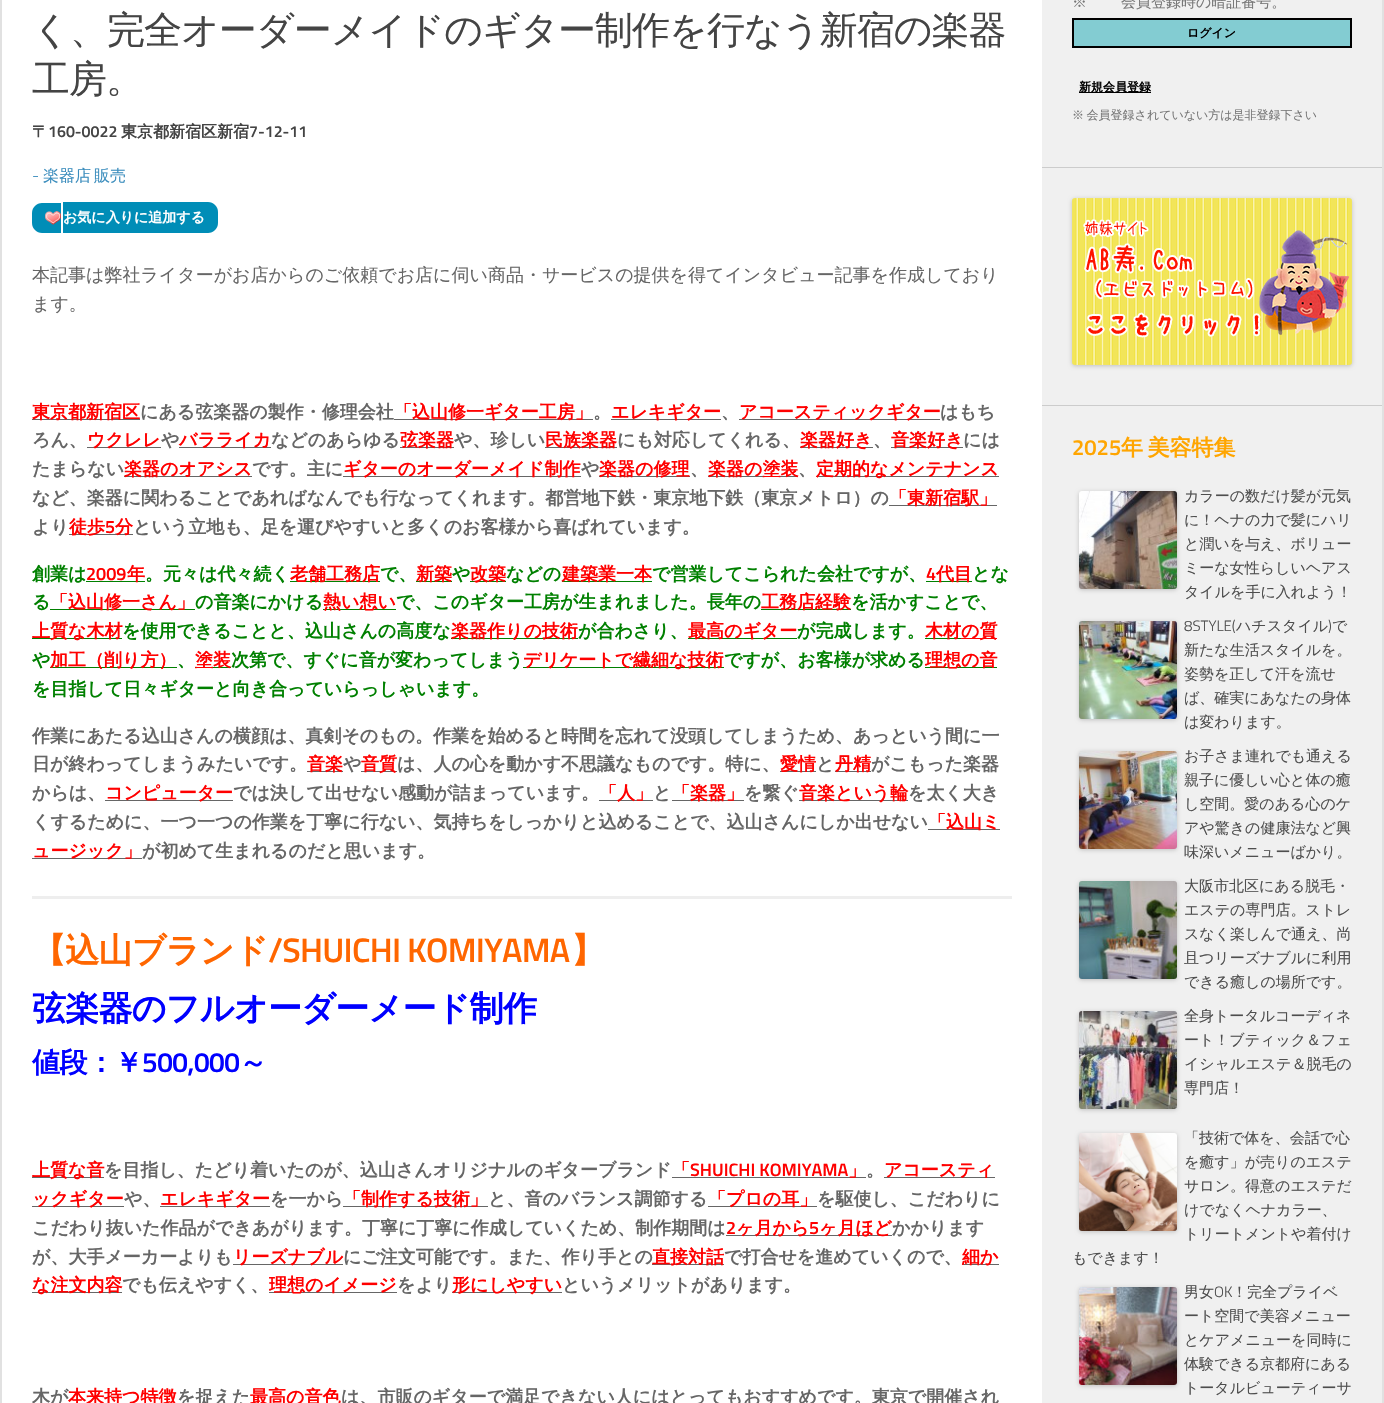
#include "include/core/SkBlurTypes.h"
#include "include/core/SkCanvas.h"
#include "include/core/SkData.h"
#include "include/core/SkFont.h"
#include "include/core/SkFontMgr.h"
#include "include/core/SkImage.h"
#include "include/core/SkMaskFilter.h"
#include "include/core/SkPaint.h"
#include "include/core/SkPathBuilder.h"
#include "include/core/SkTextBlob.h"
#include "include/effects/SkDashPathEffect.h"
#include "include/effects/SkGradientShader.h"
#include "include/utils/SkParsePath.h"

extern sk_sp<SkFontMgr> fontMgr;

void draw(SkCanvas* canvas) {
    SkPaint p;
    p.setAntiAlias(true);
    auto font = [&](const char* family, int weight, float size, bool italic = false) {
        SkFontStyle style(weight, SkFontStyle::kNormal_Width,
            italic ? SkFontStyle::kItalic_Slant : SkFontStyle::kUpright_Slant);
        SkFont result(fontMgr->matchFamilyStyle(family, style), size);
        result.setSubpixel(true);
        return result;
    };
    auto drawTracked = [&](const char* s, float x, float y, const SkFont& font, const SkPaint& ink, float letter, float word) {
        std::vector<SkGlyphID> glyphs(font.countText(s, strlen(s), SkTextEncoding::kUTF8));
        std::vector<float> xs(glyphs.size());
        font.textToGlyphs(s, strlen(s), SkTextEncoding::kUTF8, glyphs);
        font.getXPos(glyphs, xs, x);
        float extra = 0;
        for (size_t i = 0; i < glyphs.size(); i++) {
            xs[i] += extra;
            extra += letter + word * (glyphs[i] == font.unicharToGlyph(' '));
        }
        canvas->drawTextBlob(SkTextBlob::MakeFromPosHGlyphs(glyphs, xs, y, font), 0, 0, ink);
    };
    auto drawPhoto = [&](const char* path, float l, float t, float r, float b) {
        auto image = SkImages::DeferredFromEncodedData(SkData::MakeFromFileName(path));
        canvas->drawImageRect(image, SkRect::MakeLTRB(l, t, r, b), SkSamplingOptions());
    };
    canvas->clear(0xFFE1E1E1);
    p.setColor(0xFFFFFFFF);
    canvas->drawRect(SkRect::MakeLTRB(2, 0, 1042, 1403), p);
    p.setColor(0xFFF0F0F0);
    canvas->drawRect(SkRect::MakeLTRB(1042, 0, 1382, 1403), p);
    auto font1 = font("WenQuanYi Zen Hei", 500, 38);
    p.setColor(0xFF444444);
    drawTracked("く、完全オーダーメイドのギター制作を行なう新宿の楽器", 32, 43, font1, p, -1, 0);
    drawTracked("工房。", 32, 92, font1, p, -1, 0);
    auto font2 = font("WenQuanYi Zen Hei", 700, 16);
    canvas->drawString("〒", 32, 137, font2, p);
    auto font3 = font("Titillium", 600, 16);
    canvas->drawString("160-0022", 48, 137, font3, p);
    canvas->drawString("東京都新宿区新宿", 121, 137, font2, p);
    canvas->drawString("7-12-11", 249, 137, font3, p);
    auto font4 = font("Titillium", 300, 16);
    p.setColor(0xFF3B8DBD);
    canvas->drawString("-", 32, 181, font4, p);
    auto font5 = font("WenQuanYi Zen Hei", 500, 16);
    canvas->drawString("楽器店", 43, 181, font5, p);
    canvas->drawString("販売", 94, 181, font5, p);
    p.setColor(0xFF008DB7);
    canvas->drawPath(SkPathBuilder().moveTo(42, 203).lineTo(61, 203).lineTo(61, 233).lineTo(42, 233).cubicTo(36.5f, 233, 32, 228.5f, 32, 223).lineTo(32, 213).cubicTo(32, 207.5f, 36.5f, 203, 42, 203).close().detach(), p);
    drawPhoto("media/1.png", 45, 211, 61, 225);
    canvas->drawPath(SkPathBuilder().moveTo(63, 202).lineTo(208, 202).cubicTo(213.5f, 202, 218, 206.5f, 218, 212).lineTo(218, 223).cubicTo(218, 228.5f, 213.5f, 233, 208, 233).lineTo(63, 233).close().detach(), p);
    auto font6 = font("WenQuanYi Zen Hei", 700, 14);
    p.setColor(0xFFFFFFFF);
    canvas->drawString("お気に入りに追加する", 63, 222, font6, p);
    auto font7 = font("WenQuanYi Zen Hei", 500, 18);
    p.setColor(0xFF666666);
    canvas->drawString("本記事は弊社ライターがお店からのご依頼でお店に伺い商品・サービスの提供を得てインタビュー記事を作成しており", 32, 281, font7, p);
    canvas->drawString("ます。", 32, 310, font7, p);
    canvas->drawRect(SkRect::MakeLTRB(32, 419, 140, 420), p);
    auto font8 = font("WenQuanYi Zen Hei", 700, 18);
    p.setColor(0xFFFF0000);
    canvas->drawString("東京都新宿区", 32, 418, font8, p);
    p.setColor(0xFF666666);
    canvas->drawString("にある弦楽器の製作・修理会社", 140, 418, font8, p);
    canvas->drawRect(SkRect::MakeLTRB(394, 419, 593, 420), p);
    p.setColor(0xFFFF0000);
    canvas->drawString("「込山修一ギター工房」", 394, 418, font8, p);
    p.setColor(0xFF666666);
    canvas->drawString("。", 593, 418, font8, p);
    canvas->drawRect(SkRect::MakeLTRB(611, 419, 721, 420), p);
    p.setColor(0xFFFF0000);
    canvas->drawString("エレキギター", 611, 418, font8, p);
    p.setColor(0xFF666666);
    canvas->drawString("、", 721, 418, font8, p);
    canvas->drawRect(SkRect::MakeLTRB(739, 419, 940, 420), p);
    p.setColor(0xFFFF0000);
    canvas->drawString("アコースティックギター", 739, 418, font8, p);
    p.setColor(0xFF666666);
    canvas->drawString("はもち", 940, 418, font8, p);
    canvas->drawString("ろん、", 32, 446, font8, p);
    canvas->drawRect(SkRect::MakeLTRB(87, 447, 161, 448), p);
    p.setColor(0xFFFF0000);
    canvas->drawString("ウクレレ", 87, 446, font8, p);
    p.setColor(0xFF666666);
    canvas->drawString("や", 161, 446, font8, p);
    canvas->drawRect(SkRect::MakeLTRB(179, 447, 271, 448), p);
    p.setColor(0xFFFF0000);
    canvas->drawString("バラライカ", 179, 446, font8, p);
    p.setColor(0xFF666666);
    canvas->drawString("などのあらゆる", 271, 446, font8, p);
    canvas->drawRect(SkRect::MakeLTRB(400, 447, 454, 448), p);
    p.setColor(0xFFFF0000);
    canvas->drawString("弦楽器", 400, 446, font8, p);
    p.setColor(0xFF666666);
    canvas->drawString("や、珍しい", 454, 446, font8, p);
    canvas->drawRect(SkRect::MakeLTRB(545, 447, 617, 448), p);
    p.setColor(0xFFFF0000);
    canvas->drawString("民族楽器", 545, 446, font8, p);
    p.setColor(0xFF666666);
    canvas->drawString("にも対応してくれる、", 617, 446, font8, p);
    canvas->drawRect(SkRect::MakeLTRB(800, 447, 873, 448), p);
    p.setColor(0xFFFF0000);
    canvas->drawString("楽器好き", 800, 446, font8, p);
    p.setColor(0xFF666666);
    canvas->drawString("、", 873, 446, font8, p);
    canvas->drawRect(SkRect::MakeLTRB(891, 447, 963, 448), p);
    p.setColor(0xFFFF0000);
    canvas->drawString("音楽好き", 891, 446, font8, p);
    p.setColor(0xFF666666);
    canvas->drawString("には", 963, 446, font8, p);
    canvas->drawString("たまらない", 32, 475, font8, p);
    canvas->drawRect(SkRect::MakeLTRB(124, 476, 252, 477), p);
    p.setColor(0xFFFF0000);
    canvas->drawString("楽器のオアシス", 124, 475, font8, p);
    p.setColor(0xFF666666);
    canvas->drawString("です。主に", 252, 475, font8, p);
    canvas->drawRect(SkRect::MakeLTRB(343, 476, 581, 477), p);
    p.setColor(0xFFFF0000);
    canvas->drawString("ギターのオーダーメイド制作", 343, 475, font8, p);
    p.setColor(0xFF666666);
    canvas->drawString("や", 581, 475, font8, p);
    canvas->drawRect(SkRect::MakeLTRB(599, 476, 690, 477), p);
    p.setColor(0xFFFF0000);
    canvas->drawString("楽器の修理", 599, 475, font8, p);
    p.setColor(0xFF666666);
    canvas->drawString("、", 690, 475, font8, p);
    canvas->drawRect(SkRect::MakeLTRB(708, 476, 798, 477), p);
    p.setColor(0xFFFF0000);
    canvas->drawString("楽器の塗装", 708, 475, font8, p);
    p.setColor(0xFF666666);
    canvas->drawString("、", 798, 475, font8, p);
    canvas->drawRect(SkRect::MakeLTRB(816, 476, 999, 477), p);
    p.setColor(0xFFFF0000);
    canvas->drawString("定期的なメンテナンス", 816, 475, font8, p);
    p.setColor(0xFF666666);
    canvas->drawString("など、楽器に関わることであればなんでも行なってくれます。都営地下鉄・東京地下鉄（東京メトロ）の", 32, 504, font8, p);
    canvas->drawRect(SkRect::MakeLTRB(889, 505, 997, 506), p);
    p.setColor(0xFFFF0000);
    canvas->drawString("「東新宿駅」", 889, 504, font8, p);
    p.setColor(0xFF666666);
    canvas->drawString("より", 32, 533, font8, p);
    canvas->drawRect(SkRect::MakeLTRB(69, 534, 133, 535), p);
    p.setColor(0xFFFF0000);
    canvas->drawString("徒歩", 69, 533, font8, p);
    auto font9 = font("Titillium", 600, 18);
    canvas->drawString("5", 105, 533, font9, p);
    canvas->drawString("分", 115, 533, font8, p);
    p.setColor(0xFF666666);
    canvas->drawString("という立地も、足を運びやすいと多くのお客様から喜ばれています。", 133, 533, font8, p);
    p.setColor(0xFF008000);
    canvas->drawString("創業は", 32, 580, font8, p);
    p.setColor(0xFFFF0000);
    canvas->drawString("2009", 86, 580, font9, p);
    p.setColor(0xFF008000);
    canvas->drawRect(SkRect::MakeLTRB(86, 581, 145, 582), p);
    p.setColor(0xFFFF0000);
    canvas->drawString("年", 127, 580, font8, p);
    p.setColor(0xFF008000);
    canvas->drawString("。元々は代々続く", 145, 580, font8, p);
    canvas->drawRect(SkRect::MakeLTRB(290, 581, 380, 582), p);
    p.setColor(0xFFFF0000);
    canvas->drawString("老舗工務店", 290, 580, font8, p);
    p.setColor(0xFF008000);
    canvas->drawString("で、", 380, 580, font8, p);
    canvas->drawRect(SkRect::MakeLTRB(416, 581, 452, 582), p);
    p.setColor(0xFFFF0000);
    canvas->drawString("新築", 416, 580, font8, p);
    p.setColor(0xFF008000);
    canvas->drawString("や", 452, 580, font8, p);
    canvas->drawRect(SkRect::MakeLTRB(470, 581, 506, 582), p);
    p.setColor(0xFFFF0000);
    canvas->drawString("改築", 470, 580, font8, p);
    p.setColor(0xFF008000);
    canvas->drawString("などの", 506, 580, font8, p);
    canvas->drawRect(SkRect::MakeLTRB(562, 581, 652, 582), p);
    p.setColor(0xFFFF0000);
    canvas->drawString("建築業一本", 562, 580, font8, p);
    p.setColor(0xFF008000);
    canvas->drawString("で営業してこられた会社ですが、", 652, 580, font8, p);
    p.setColor(0xFFFF0000);
    canvas->drawString("4", 926, 580, font9, p);
    p.setColor(0xFF008000);
    canvas->drawRect(SkRect::MakeLTRB(926, 581, 972, 582), p);
    p.setColor(0xFFFF0000);
    canvas->drawString("代目", 936, 580, font8, p);
    p.setColor(0xFF008000);
    canvas->drawString("とな", 972, 580, font8, p);
    canvas->drawString("る", 32, 608, font8, p);
    canvas->drawRect(SkRect::MakeLTRB(50, 609, 195, 610), p);
    p.setColor(0xFFFF0000);
    canvas->drawString("「込山修一さん」", 50, 608, font8, p);
    p.setColor(0xFF008000);
    canvas->drawString("の音楽にかける", 195, 608, font8, p);
    canvas->drawRect(SkRect::MakeLTRB(323, 609, 396, 610), p);
    p.setColor(0xFFFF0000);
    canvas->drawString("熱い想い", 323, 608, font8, p);
    p.setColor(0xFF008000);
    canvas->drawString("で、このギター工房が生まれました。長年の", 396, 608, font8, p);
    canvas->drawRect(SkRect::MakeLTRB(761, 609, 851, 610), p);
    p.setColor(0xFFFF0000);
    canvas->drawString("工務店経験", 761, 608, font8, p);
    p.setColor(0xFF008000);
    canvas->drawString("を活かすことで、", 851, 608, font8, p);
    canvas->drawRect(SkRect::MakeLTRB(32, 638, 122, 639), p);
    p.setColor(0xFFFF0000);
    canvas->drawString("上質な木材", 32, 637, font8, p);
    p.setColor(0xFF008000);
    canvas->drawString("を使用できることと、込山さんの高度な", 122, 637, font8, p);
    canvas->drawRect(SkRect::MakeLTRB(451, 638, 578, 639), p);
    p.setColor(0xFFFF0000);
    canvas->drawString("楽器作りの技術", 451, 637, font8, p);
    p.setColor(0xFF008000);
    canvas->drawString("が合わさり、", 578, 637, font8, p);
    canvas->drawRect(SkRect::MakeLTRB(688, 638, 797, 639), p);
    p.setColor(0xFFFF0000);
    canvas->drawString("最高のギター", 688, 637, font8, p);
    p.setColor(0xFF008000);
    canvas->drawString("が完成します。", 797, 637, font8, p);
    canvas->drawRect(SkRect::MakeLTRB(925, 638, 961, 639), p);
    p.setColor(0xFFFF0000);
    canvas->drawString("木材", 925, 637, font8, p);
    canvas->drawRect(SkRect::MakeLTRB(961, 638, 997, 639), p);
    canvas->drawString("の質", 961, 637, font8, p);
    p.setColor(0xFF008000);
    canvas->drawString("や", 32, 666, font8, p);
    canvas->drawRect(SkRect::MakeLTRB(50, 667, 177, 668), p);
    p.setColor(0xFFFF0000);
    canvas->drawString("加工（削り方）", 50, 666, font8, p);
    p.setColor(0xFF008000);
    canvas->drawString("、", 177, 666, font8, p);
    canvas->drawRect(SkRect::MakeLTRB(195, 667, 231, 668), p);
    p.setColor(0xFFFF0000);
    canvas->drawString("塗装", 195, 666, font8, p);
    p.setColor(0xFF008000);
    canvas->drawString("次第で、すぐに音が変わってしまう", 231, 666, font8, p);
    canvas->drawRect(SkRect::MakeLTRB(523, 667, 724, 668), p);
    p.setColor(0xFFFF0000);
    canvas->drawString("デリケートで繊細な技術", 523, 666, font8, p);
    p.setColor(0xFF008000);
    canvas->drawString("ですが、お客様が求める", 724, 666, font8, p);
    canvas->drawRect(SkRect::MakeLTRB(925, 667, 997, 668), p);
    p.setColor(0xFFFF0000);
    canvas->drawString("理想の音", 925, 666, font8, p);
    p.setColor(0xFF008000);
    canvas->drawString("を目指して日々ギターと向き合っていらっしゃいます。", 32, 695, font8, p);
    p.setColor(0xFF666666);
    canvas->drawString("作業にあたる込山さんの横顔は、真剣そのもの。作業を始めると時間を忘れて没頭してしまうため、あっという間に一", 32, 742, font8, p);
    canvas->drawString("日が終わってしまうみたいです。", 32, 770, font8, p);
    canvas->drawRect(SkRect::MakeLTRB(307, 771, 343, 772), p);
    p.setColor(0xFFFF0000);
    canvas->drawString("音楽", 307, 770, font8, p);
    p.setColor(0xFF666666);
    canvas->drawString("や", 343, 770, font8, p);
    canvas->drawRect(SkRect::MakeLTRB(361, 771, 397, 772), p);
    p.setColor(0xFFFF0000);
    canvas->drawString("音質", 361, 770, font8, p);
    p.setColor(0xFF666666);
    canvas->drawString("は、人の心を動かす不思議なものです。特に、", 397, 770, font8, p);
    canvas->drawRect(SkRect::MakeLTRB(780, 771, 816, 772), p);
    p.setColor(0xFFFF0000);
    canvas->drawString("愛情", 780, 770, font8, p);
    p.setColor(0xFF666666);
    canvas->drawString("と", 816, 770, font8, p);
    canvas->drawRect(SkRect::MakeLTRB(835, 771, 871, 772), p);
    p.setColor(0xFFFF0000);
    canvas->drawString("丹精", 835, 770, font8, p);
    p.setColor(0xFF666666);
    canvas->drawString("がこもった楽器", 871, 770, font8, p);
    canvas->drawString("からは、", 32, 799, font8, p);
    canvas->drawRect(SkRect::MakeLTRB(105, 800, 233, 801), p);
    p.setColor(0xFFFF0000);
    canvas->drawString("コンピューター", 105, 799, font8, p);
    p.setColor(0xFF666666);
    canvas->drawString("では決して出せない感動が詰まっています。", 233, 799, font8, p);
    canvas->drawRect(SkRect::MakeLTRB(599, 800, 653, 801), p);
    p.setColor(0xFFFF0000);
    canvas->drawString("「人」", 599, 799, font8, p);
    p.setColor(0xFF666666);
    canvas->drawString("と", 653, 799, font8, p);
    canvas->drawRect(SkRect::MakeLTRB(672, 800, 744, 801), p);
    p.setColor(0xFFFF0000);
    canvas->drawString("「楽器」", 672, 799, font8, p);
    p.setColor(0xFF666666);
    canvas->drawString("を繋ぐ", 744, 799, font8, p);
    canvas->drawRect(SkRect::MakeLTRB(799, 800, 908, 801), p);
    p.setColor(0xFFFF0000);
    canvas->drawString("音楽という輪", 799, 799, font8, p);
    p.setColor(0xFF666666);
    canvas->drawString("を太く大き", 908, 799, font8, p);
    canvas->drawString("くするために、一つ一つの作業を丁寧に行ない、気持ちをしっかりと込めることで、込山さんにしか出せない", 32, 828, font8, p);
    canvas->drawRect(SkRect::MakeLTRB(928, 829, 1000, 830), p);
    p.setColor(0xFFFF0000);
    canvas->drawString("「込山ミ", 928, 828, font8, p);
    p.setColor(0xFF666666);
    canvas->drawRect(SkRect::MakeLTRB(32, 858, 142, 859), p);
    p.setColor(0xFFFF0000);
    canvas->drawString("ュージック」", 32, 857, font8, p);
    p.setColor(0xFF666666);
    canvas->drawString("が初めて生まれるのだと思います。", 142, 857, font8, p);
    p.setColor(0xFFEEEEEE);
    canvas->drawRect(SkRect::MakeLTRB(32, 896, 1012, 899), p);
    auto font10 = font("WenQuanYi Zen Hei", 700, 34);
    p.setColor(0xFFFF6600);
    drawTracked("【込山ブランド", 32, 962, font10, p, -0.75f, 0);
    auto font11 = font("Titillium", 600, 34);
    drawTracked("/SHUICHI KOMIYAMA", 268, 962, font11, p, -0.75f, 0);
    drawTracked("】", 571, 962, font10, p, -0.75f, 0);
    p.setColor(0xFF0000FF);
    drawTracked("弦楽器のフルオーダーメード制作", 32, 1020, font10, p, -0.75f, 0);
    auto font12 = font("WenQuanYi Zen Hei", 700, 28);
    drawTracked("値段：￥", 32, 1072, font12, p, -0.5f, 0);
    auto font13 = font("Titillium", 600, 28);
    drawTracked("500,000", 142, 1072, font13, p, -0.5f, 0);
    drawTracked("～", 239, 1072, font12, p, -0.5f, 0);
    p.setColor(0xFF666666);
    canvas->drawRect(SkRect::MakeLTRB(32, 1177, 104, 1178), p);
    p.setColor(0xFFFF0000);
    canvas->drawString("上質な音", 32, 1176, font8, p);
    p.setColor(0xFF666666);
    canvas->drawString("を目指し、たどり着いたのが、込山さんオリジナルのギターブランド", 104, 1176, font8, p);
    p.setColor(0xFFFF0000);
    canvas->drawString("「", 672, 1176, font8, p);
    canvas->drawString("SHUICHI KOMIYAMA", 690, 1176, font9, p);
    p.setColor(0xFF666666);
    canvas->drawRect(SkRect::MakeLTRB(672, 1177, 866, 1178), p);
    p.setColor(0xFFFF0000);
    canvas->drawString("」", 848, 1176, font8, p);
    p.setColor(0xFF666666);
    canvas->drawString("。", 866, 1176, font8, p);
    canvas->drawRect(SkRect::MakeLTRB(884, 1177, 995, 1178), p);
    p.setColor(0xFFFF0000);
    canvas->drawString("アコースティ", 884, 1176, font8, p);
    p.setColor(0xFF666666);
    canvas->drawRect(SkRect::MakeLTRB(32, 1206, 124, 1207), p);
    p.setColor(0xFFFF0000);
    canvas->drawString("ックギター", 32, 1205, font8, p);
    p.setColor(0xFF666666);
    canvas->drawString("や、", 124, 1205, font8, p);
    canvas->drawRect(SkRect::MakeLTRB(160, 1206, 270, 1207), p);
    p.setColor(0xFFFF0000);
    canvas->drawString("エレキギター", 160, 1205, font8, p);
    p.setColor(0xFF666666);
    canvas->drawString("を一から", 270, 1205, font8, p);
    canvas->drawRect(SkRect::MakeLTRB(343, 1206, 488, 1207), p);
    p.setColor(0xFFFF0000);
    canvas->drawString("「制作する技術」", 343, 1205, font8, p);
    p.setColor(0xFF666666);
    canvas->drawString("と、音のバランス調節する", 488, 1205, font8, p);
    canvas->drawRect(SkRect::MakeLTRB(708, 1206, 817, 1207), p);
    p.setColor(0xFFFF0000);
    canvas->drawString("「プロの耳」", 708, 1205, font8, p);
    p.setColor(0xFF666666);
    canvas->drawString("を駆使し、こだわりに", 817, 1205, font8, p);
    canvas->drawString("こだわり抜いた作品ができあがります。丁寧に丁寧に作成していくため、制作期間は", 32, 1234, font8, p);
    p.setColor(0xFFFF0000);
    canvas->drawString("2", 726, 1234, font9, p);
    p.setColor(0xFF666666);
    canvas->drawRect(SkRect::MakeLTRB(726, 1235, 892, 1236), p);
    p.setColor(0xFFFF0000);
    canvas->drawString("ヶ月から", 736, 1234, font8, p);
    canvas->drawString("5", 809, 1234, font9, p);
    canvas->drawString("ヶ月ほど", 819, 1234, font8, p);
    p.setColor(0xFF666666);
    canvas->drawString("かかります", 892, 1234, font8, p);
    canvas->drawString("が、大手メーカーよりも", 32, 1263, font8, p);
    canvas->drawRect(SkRect::MakeLTRB(233, 1264, 343, 1265), p);
    p.setColor(0xFFFF0000);
    canvas->drawString("リーズナブル", 233, 1263, font8, p);
    p.setColor(0xFF666666);
    canvas->drawString("にご注文可能です。また、作り手との", 343, 1263, font8, p);
    canvas->drawRect(SkRect::MakeLTRB(652, 1264, 724, 1265), p);
    p.setColor(0xFFFF0000);
    canvas->drawString("直接対話", 652, 1263, font8, p);
    p.setColor(0xFF666666);
    canvas->drawString("で打合せを進めていくので、", 724, 1263, font8, p);
    canvas->drawRect(SkRect::MakeLTRB(962, 1264, 999, 1265), p);
    p.setColor(0xFFFF0000);
    canvas->drawString("細か", 962, 1263, font8, p);
    p.setColor(0xFF666666);
    canvas->drawRect(SkRect::MakeLTRB(32, 1292, 122, 1293), p);
    p.setColor(0xFFFF0000);
    canvas->drawString("な注文内容", 32, 1291, font8, p);
    p.setColor(0xFF666666);
    canvas->drawString("でも伝えやすく、", 122, 1291, font8, p);
    canvas->drawRect(SkRect::MakeLTRB(269, 1292, 397, 1293), p);
    p.setColor(0xFFFF0000);
    canvas->drawString("理想のイメージ", 269, 1291, font8, p);
    p.setColor(0xFF666666);
    canvas->drawString("をより", 397, 1291, font8, p);
    canvas->drawRect(SkRect::MakeLTRB(452, 1292, 562, 1293), p);
    p.setColor(0xFFFF0000);
    canvas->drawString("形にしやすい", 452, 1291, font8, p);
    p.setColor(0xFF666666);
    canvas->drawString("というメリットがあります。", 562, 1291, font8, p);
    canvas->drawString("木が", 32, 1403, font8, p);
    p.setColor(0xFFFF0000);
    canvas->drawString("本来持つ特徴", 68, 1403, font8, p);
    p.setColor(0xFF666666);
    canvas->drawString("を捉えた", 177, 1403, font8, p);
    p.setColor(0xFFFF0000);
    canvas->drawString("最高の音色", 250, 1403, font8, p);
    p.setColor(0xFF666666);
    canvas->drawString("は、市販のギターで満足できない人にはとってもおすすめです。東京で開催され", 341, 1403, font8, p);
    p.setColor(0xFFCCCCCC);
    canvas->drawRect(SkRect::MakeLTRB(1042, 167, 1382, 168), p);
    auto font14 = font("WenQuanYi Zen Hei", 500, 15);
    p.setColor(0xFF777777);
    canvas->drawString("※", 1072, 7, font14, p);
    canvas->drawString("会員登録時の暗証番号。", 1121, 7, font14, p);
    p.setColor(0xFF83CCD2);
    canvas->drawRect(SkRect::MakeLTRB(1073, 19, 1351, 47), p);
    p.setStyle(SkPaint::kStroke_Style);
    p.setStrokeWidth(2);
    p.setColor(0xFF000000);
    canvas->drawRect(SkRect::MakeLTRB(1073, 19, 1351, 47), p);
    auto font15 = font("WenQuanYi Zen Hei", 700, 12);
    p.setStyle(SkPaint::kFill_Style);
    canvas->drawString("ログイン", 1187, 37, font15, p);
    canvas->drawRect(SkRect::MakeLTRB(1079, 92, 1151, 93), p);
    canvas->drawString("新規会員登録", 1079, 91, font15, p);
    auto font16 = font("WenQuanYi Zen Hei", 500, 12);
    p.setColor(0xFF777777);
    drawTracked("※ 会員登録されていない方は是非登録下さい", 1072, 119, font16, p, 0, -1);
    p.setColor(0xFFCCCCCC);
    canvas->drawRect(SkRect::MakeLTRB(1042, 405, 1382, 406), p);
    p.setColor(0x33000000);
    p.setMaskFilter(SkMaskFilter::MakeBlur(kNormal_SkBlurStyle, 2));
    canvas->drawRoundRect(SkRect::MakeLTRB(1072, 199, 1352, 366), 3, 3, p);
    p.setMaskFilter(nullptr);
    drawPhoto("media/2.png", 1072, 198, 1352, 365);
    auto font17 = font("Titillium", 600, 22);
    p.setColor(0xFFFFA500);
    canvas->drawString("2025", 1072, 455, font17, p);
    auto font18 = font("WenQuanYi Zen Hei", 700, 22);
    drawTracked("年 美容特集", 1121, 455, font18, p, 0, -2);
    p.setColor(0x33000000);
    p.setMaskFilter(SkMaskFilter::MakeBlur(kNormal_SkBlurStyle, 2));
    canvas->drawRoundRect(SkRect::MakeLTRB(1079, 492, 1177, 590), 3, 3, p);
    p.setMaskFilter(nullptr);
    drawPhoto("media/3.png", 1079, 491, 1177, 589);
    p.setColor(0xFF4E4E4E);
    {
        const struct { const char* s; float x, y; } items[] = {
            {"カラーの数だけ髪が元気", 1184, 501},
            {"に！ヘナの力で髪にハリ", 1184, 525},
            {"と潤いを与え、ボリュー", 1184, 549},
            {"ミーな女性らしいヘアス", 1184, 573},
            {"タイルを手に入れよう！", 1184, 597},
        };
        for (auto [s, x, y] : items) {
            canvas->drawString(s, x, y, font14, p);
        }
    }
    p.setColor(0x33000000);
    p.setMaskFilter(SkMaskFilter::MakeBlur(kNormal_SkBlurStyle, 2));
    canvas->drawRoundRect(SkRect::MakeLTRB(1079, 622, 1177, 720), 3, 3, p);
    p.setMaskFilter(nullptr);
    drawPhoto("media/4.png", 1079, 621, 1177, 719);
    auto font19 = font("Titillium", 300, 15);
    p.setColor(0xFF4E4E4E);
    canvas->drawString("8STYLE(", 1184, 631, font19, p);
    canvas->drawString("ハチスタイル", 1236, 631, font14, p);
    canvas->drawString(")", 1328, 631, font19, p);
    {
        const struct { const char* s; float x, y; } items[] = {
            {"で", 1332, 631},
            {"新たな生活スタイルを。", 1184, 655},
            {"姿勢を正して汗を流せ", 1184, 679},
            {"ば、確実にあなたの身体", 1184, 703},
            {"は変わります。", 1184, 727},
        };
        for (auto [s, x, y] : items) {
            canvas->drawString(s, x, y, font14, p);
        }
    }
    p.setColor(0x33000000);
    p.setMaskFilter(SkMaskFilter::MakeBlur(kNormal_SkBlurStyle, 2));
    canvas->drawRoundRect(SkRect::MakeLTRB(1079, 752, 1177, 850), 3, 3, p);
    p.setMaskFilter(nullptr);
    drawPhoto("media/5.png", 1079, 751, 1177, 849);
    p.setColor(0xFF4E4E4E);
    {
        const struct { const char* s; float x, y; } items[] = {
            {"お子さま連れでも通える", 1184, 761},
            {"親子に優しい心と体の癒", 1184, 785},
            {"し空間。愛のある心のケ", 1184, 809},
            {"アや驚きの健康法など興", 1184, 833},
            {"味深いメニューばかり。", 1184, 857},
        };
        for (auto [s, x, y] : items) {
            canvas->drawString(s, x, y, font14, p);
        }
    }
    p.setColor(0x33000000);
    p.setMaskFilter(SkMaskFilter::MakeBlur(kNormal_SkBlurStyle, 2));
    canvas->drawRoundRect(SkRect::MakeLTRB(1079, 882, 1177, 980), 3, 3, p);
    p.setMaskFilter(nullptr);
    drawPhoto("media/6.png", 1079, 881, 1177, 979);
    p.setColor(0xFF4E4E4E);
    {
        const struct { const char* s; float x, y; } items[] = {
            {"大阪市北区にある脱毛・", 1184, 891},
            {"エステの専門店。ストレ", 1184, 915},
            {"スなく楽しんで通え、尚", 1184, 939},
            {"且つリーズナブルに利用", 1184, 963},
            {"できる癒しの場所です。", 1184, 987},
        };
        for (auto [s, x, y] : items) {
            canvas->drawString(s, x, y, font14, p);
        }
    }
    p.setColor(0x33000000);
    p.setMaskFilter(SkMaskFilter::MakeBlur(kNormal_SkBlurStyle, 2));
    canvas->drawRoundRect(SkRect::MakeLTRB(1079, 1012, 1177, 1110), 3, 3, p);
    p.setMaskFilter(nullptr);
    drawPhoto("media/7.png", 1079, 1011, 1177, 1109);
    p.setColor(0xFF4E4E4E);
    {
        const struct { const char* s; float x, y; } items[] = {
            {"全身トータルコーディネ", 1184, 1021},
            {"ート！ブティック＆フェ", 1184, 1045},
            {"イシャルエステ＆脱毛の", 1184, 1069},
            {"専門店！", 1184, 1093},
        };
        for (auto [s, x, y] : items) {
            canvas->drawString(s, x, y, font14, p);
        }
    }
    p.setColor(0x33000000);
    p.setMaskFilter(SkMaskFilter::MakeBlur(kNormal_SkBlurStyle, 2));
    canvas->drawRoundRect(SkRect::MakeLTRB(1079, 1134, 1177, 1232), 3, 3, p);
    p.setMaskFilter(nullptr);
    drawPhoto("media/8.png", 1079, 1133, 1177, 1231);
    p.setColor(0xFF4E4E4E);
    {
        const struct { const char* s; float x, y; } items[] = {
            {"「技術で体を、会話で心", 1184, 1143},
            {"を癒す」が売りのエステ", 1184, 1167},
            {"サロン。得意のエステだ", 1184, 1191},
            {"けでなくヘナカラー、", 1184, 1215},
            {"トリートメントや着付け", 1184, 1239},
            {"もできます！", 1072, 1263},
        };
        for (auto [s, x, y] : items) {
            canvas->drawString(s, x, y, font14, p);
        }
    }
    p.setColor(0x33000000);
    p.setMaskFilter(SkMaskFilter::MakeBlur(kNormal_SkBlurStyle, 2));
    canvas->drawRoundRect(SkRect::MakeLTRB(1079, 1288, 1177, 1386), 3, 3, p);
    p.setMaskFilter(nullptr);
    drawPhoto("media/9.png", 1079, 1287, 1177, 1385);
    p.setColor(0xFF4E4E4E);
    canvas->drawString("男女", 1184, 1297, font14, p);
    canvas->drawString("OK", 1214, 1297, font19, p);
    {
        const struct { const char* s; float x, y; } items[] = {
            {"！完全プライベ", 1232, 1297},
            {"ート空間で美容メニュー", 1184, 1321},
            {"とケアメニューを同時に", 1184, 1345},
            {"体験できる京都府にある", 1184, 1369},
            {"トータルビューティーサ", 1184, 1393},
        };
        for (auto [s, x, y] : items) {
            canvas->drawString(s, x, y, font14, p);
        }
    }
}
